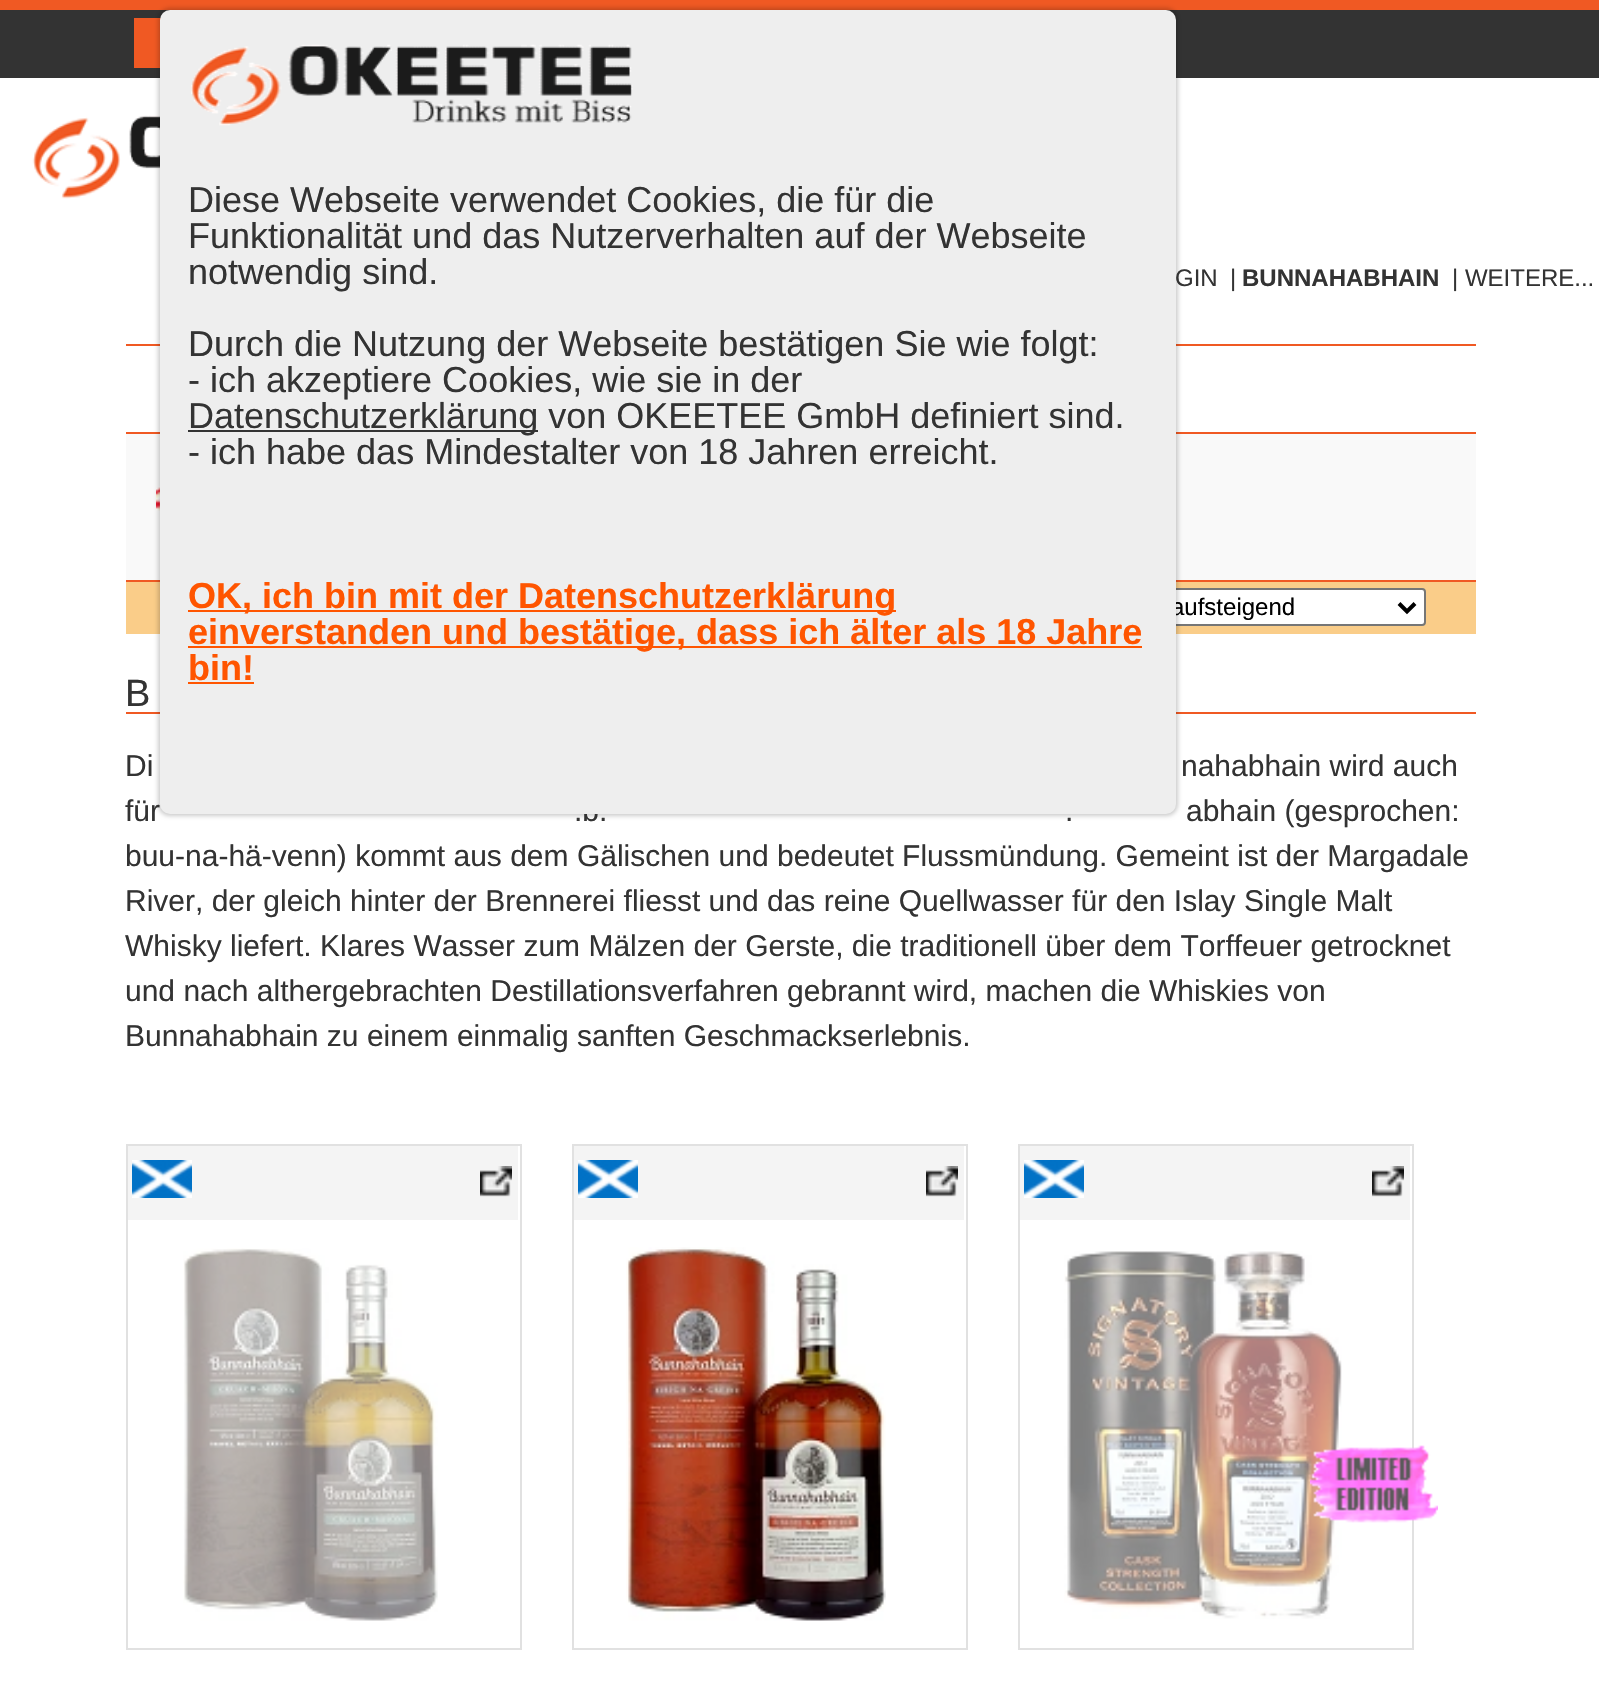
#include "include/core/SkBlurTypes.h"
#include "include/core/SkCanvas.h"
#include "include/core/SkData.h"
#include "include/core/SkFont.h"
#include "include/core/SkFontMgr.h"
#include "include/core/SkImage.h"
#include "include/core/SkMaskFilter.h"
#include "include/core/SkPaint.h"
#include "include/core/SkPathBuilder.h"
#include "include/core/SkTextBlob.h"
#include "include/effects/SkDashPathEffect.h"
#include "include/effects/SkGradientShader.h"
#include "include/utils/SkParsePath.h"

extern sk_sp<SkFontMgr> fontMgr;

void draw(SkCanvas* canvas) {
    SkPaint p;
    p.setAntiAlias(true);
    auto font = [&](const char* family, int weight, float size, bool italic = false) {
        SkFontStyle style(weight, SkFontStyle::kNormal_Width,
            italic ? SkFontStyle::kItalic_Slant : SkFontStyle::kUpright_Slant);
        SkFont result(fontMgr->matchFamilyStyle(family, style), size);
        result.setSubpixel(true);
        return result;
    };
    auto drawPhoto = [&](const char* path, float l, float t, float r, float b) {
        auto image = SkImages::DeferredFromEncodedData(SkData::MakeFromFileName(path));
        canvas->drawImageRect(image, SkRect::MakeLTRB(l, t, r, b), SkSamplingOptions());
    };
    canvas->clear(0xFFFFFFFF);
    {
        const struct { float l, t, r, b; SkColor color; } items[] = {
            {0, 10, 1599, 78, 0xFF333333},
            {0, 0, 1599, 10, 0xFFF05923},
            {134, 18, 161, 68, 0xFFF05923},
        };
        for (auto [l, t, r, b, color] : items) {
            p.setColor(color);
            canvas->drawRect(SkRect::MakeLTRB(l, t, r, b), p);
        }
    }
    drawPhoto("media/2.png", 32, 115, 160, 199);
    {
        const struct { float l, t, r, b; SkColor color; } items[] = {
            {126, 344, 1476, 346, 0xFFF05923},
            {126, 580, 1476, 582, 0xFFF05923},
            {126, 434, 1476, 580, 0xFFF9F9F9},
            {126, 432, 1476, 434, 0xFFF05923},
        };
        for (auto [l, t, r, b, color] : items) {
            p.setColor(color);
            canvas->drawRect(SkRect::MakeLTRB(l, t, r, b), p);
        }
    }
    drawPhoto("media/3.png", 156, 485, 160, 511);
    p.setColor(0xFFFACD89);
    canvas->drawRect(SkRect::MakeLTRB(126, 582, 1476, 634), p);
    p.setColor(0xFFFFFFFF);
    canvas->drawRoundRect(SkRect::MakeLTRB(1107, 589, 1425, 625), 3, 3, p);
    p.setStyle(SkPaint::kStroke_Style);
    p.setStrokeWidth(2);
    p.setColor(0xFF767676);
    canvas->drawRoundRect(SkRect::MakeLTRB(1107, 589, 1425, 625), 3, 3, p);
    p.setStyle(SkPaint::kFill_Style);
    p.setColor(0xFFF05923);
    canvas->drawRect(SkRect::MakeLTRB(126, 712, 1476, 714), p);
    p.setColor(0x33000000);
    p.setMaskFilter(SkMaskFilter::MakeBlur(kNormal_SkBlurStyle, 2));
    canvas->drawRoundRect(SkRect::MakeLTRB(158, 8, 1178, 816), 12, 12, p);
    p.setMaskFilter(nullptr);
    auto font1 = font("Liberation Sans", 400, 24);
    p.setColor(0xFF000000);
    canvas->drawString("aufsteigend", 1171, 615, font1, p);
    auto font2 = font("Liberation Sans", 400, 30);
    p.setColor(0xFF333333);
    canvas->drawString(".b.", 574, 821, font2, p);
    p.setColor(0xFFEEEEEE);
    canvas->drawRoundRect(SkRect::MakeLTRB(160, 10, 1176, 814), 10, 10, p);
    drawPhoto("media/1.png", 191, 44, 633, 126);
    auto font3 = font("Liberation Sans", 400, 36);
    p.setColor(0xFF333333);
    {
        const struct { const char* s; float x, y; } items[] = {
            {"Diese Webseite verwendet Cookies, die für die", 188, 212},
            {"Funktionalität und das Nutzerverhalten auf der Webseite", 188, 248},
            {"notwendig sind.", 188, 284},
            {"Durch die Nutzung der Webseite bestätigen Sie wie folgt:", 188, 356},
            {"- ich akzeptiere Cookies, wie sie in der", 188, 392},
        };
        for (auto [s, x, y] : items) {
            canvas->drawString(s, x, y, font3, p);
        }
    }
    canvas->drawRect(SkRect::MakeLTRB(188, 430, 538, 432), p);
    canvas->drawString("Datenschutzerklärung von OKEETEE GmbH definiert sind.", 188, 428, font3, p);
    canvas->drawString("- ich habe das Mindestalter von 18 Jahren erreicht.", 188, 464, font3, p);
    p.setColor(0xFFFF5500);
    canvas->drawRect(SkRect::MakeLTRB(188, 610, 896, 612), p);
    auto font4 = font("Liberation Sans", 700, 36);
    canvas->drawString("OK, ich bin mit der Datenschutzerklärung", 188, 608, font4, p);
    canvas->drawRect(SkRect::MakeLTRB(188, 646, 1142, 648), p);
    canvas->drawString("einverstanden und bestätige, dass ich älter als 18 Jahre", 188, 644, font4, p);
    canvas->drawString("bin!", 188, 680, font4, p);
    canvas->drawRect(SkRect::MakeLTRB(188, 682, 254, 684), p);
    p.setColor(0xFF333333);
    canvas->drawString("GIN", 1175, 286, font1, p);
    canvas->drawString("|", 1230, 286, font1, p);
    auto font5 = font("Liberation Sans", 700, 24);
    canvas->drawString("BUNNAHABHAIN", 1242, 286, font5, p);
    canvas->drawString("| WEITERE...", 1452, 286, font1, p);
    p.setStyle(SkPaint::kStroke_Style);
    p.setStrokeWidth(4);
    p.setColor(0xFF000000);
    canvas->drawPath(SkPathBuilder().moveTo(1399, 603.5f).lineTo(1407, 611.5f).lineTo(1415, 603.5f).detach(), p);
    auto font6 = font("Liberation Sans", 400, 38);
    p.setStyle(SkPaint::kFill_Style);
    p.setColor(0xFF333333);
    canvas->drawString("B", 125, 706, font6, p);
    {
        const struct { const char* s; float x, y; } items[] = {
            {"Di", 125, 776},
            {"nahabhain wird auch", 1181, 776},
            {"für", 125, 821},
            {".", 1065, 821},
            {"abhain (gesprochen:", 1186, 821},
            {"buu-na-hä-venn) kommt aus dem Gälischen und bedeutet Flussmündung. Gemeint ist der Margadale", 125, 866},
            {"River, der gleich hinter der Brennerei fliesst und das reine Quellwasser für den Islay Single Malt", 125, 911},
            {"Whisky liefert. Klares Wasser zum Mälzen der Gerste, die traditionell über dem Torffeuer getrocknet", 125, 956},
            {"und nach althergebrachten Destillationsverfahren gebrannt wird, machen die Whiskies von", 125, 1001},
            {"Bunnahabhain zu einem einmalig sanften Geschmackserlebnis.", 125, 1046},
        };
        for (auto [s, x, y] : items) {
            canvas->drawString(s, x, y, font2, p);
        }
    }
    {
        const struct { float l, t, r, b; SkColor color; } items[] = {
            {126, 1144, 522, 1146, 0xFFE1E1E1},
            {126, 1146, 128, 1648, 0xFFE1E1E1},
            {128, 1146, 518, 1220, 0xFFF4F4F4},
        };
        for (auto [l, t, r, b, color] : items) {
            p.setColor(color);
            canvas->drawRect(SkRect::MakeLTRB(l, t, r, b), p);
        }
    }
    drawPhoto("media/4.png", 132, 1160, 192, 1198);
    drawPhoto("media/5.png", 480, 1166, 512, 1197);
    p.setColor(0xFFE1E1E1);
    canvas->drawRect(SkRect::MakeLTRB(520, 1146, 522, 1648), p);
    drawPhoto("media/6.png", 183, 1248, 438, 1621);
    {
        const struct { float l, t, r, b; SkColor color; } items[] = {
            {126, 1648, 522, 1650, 0xFFE1E1E1},
            {572, 1144, 968, 1146, 0xFFE1E1E1},
            {572, 1146, 574, 1648, 0xFFE1E1E1},
            {574, 1146, 964, 1220, 0xFFF4F4F4},
        };
        for (auto [l, t, r, b, color] : items) {
            p.setColor(color);
            canvas->drawRect(SkRect::MakeLTRB(l, t, r, b), p);
        }
    }
    drawPhoto("media/4.png", 578, 1160, 638, 1198);
    drawPhoto("media/5.png", 926, 1166, 958, 1197);
    p.setColor(0xFFE1E1E1);
    canvas->drawRect(SkRect::MakeLTRB(966, 1146, 968, 1648), p);
    drawPhoto("media/7.png", 626, 1247, 886, 1621);
    {
        const struct { float l, t, r, b; SkColor color; } items[] = {
            {572, 1648, 968, 1650, 0xFFE1E1E1},
            {1018, 1144, 1414, 1146, 0xFFE1E1E1},
            {1018, 1146, 1020, 1648, 0xFFE1E1E1},
            {1020, 1146, 1410, 1220, 0xFFF4F4F4},
        };
        for (auto [l, t, r, b, color] : items) {
            p.setColor(color);
            canvas->drawRect(SkRect::MakeLTRB(l, t, r, b), p);
        }
    }
    drawPhoto("media/4.png", 1024, 1160, 1084, 1198);
    drawPhoto("media/5.png", 1372, 1166, 1404, 1197);
    p.setColor(0xFFE1E1E1);
    canvas->drawRect(SkRect::MakeLTRB(1412, 1146, 1414, 1648), p);
    drawPhoto("media/8.png", 1064, 1251, 1342, 1619);
    drawPhoto("media/9.png", 1310, 1445, 1438, 1523);
    canvas->drawRect(SkRect::MakeLTRB(1018, 1648, 1414, 1650), p);
}
